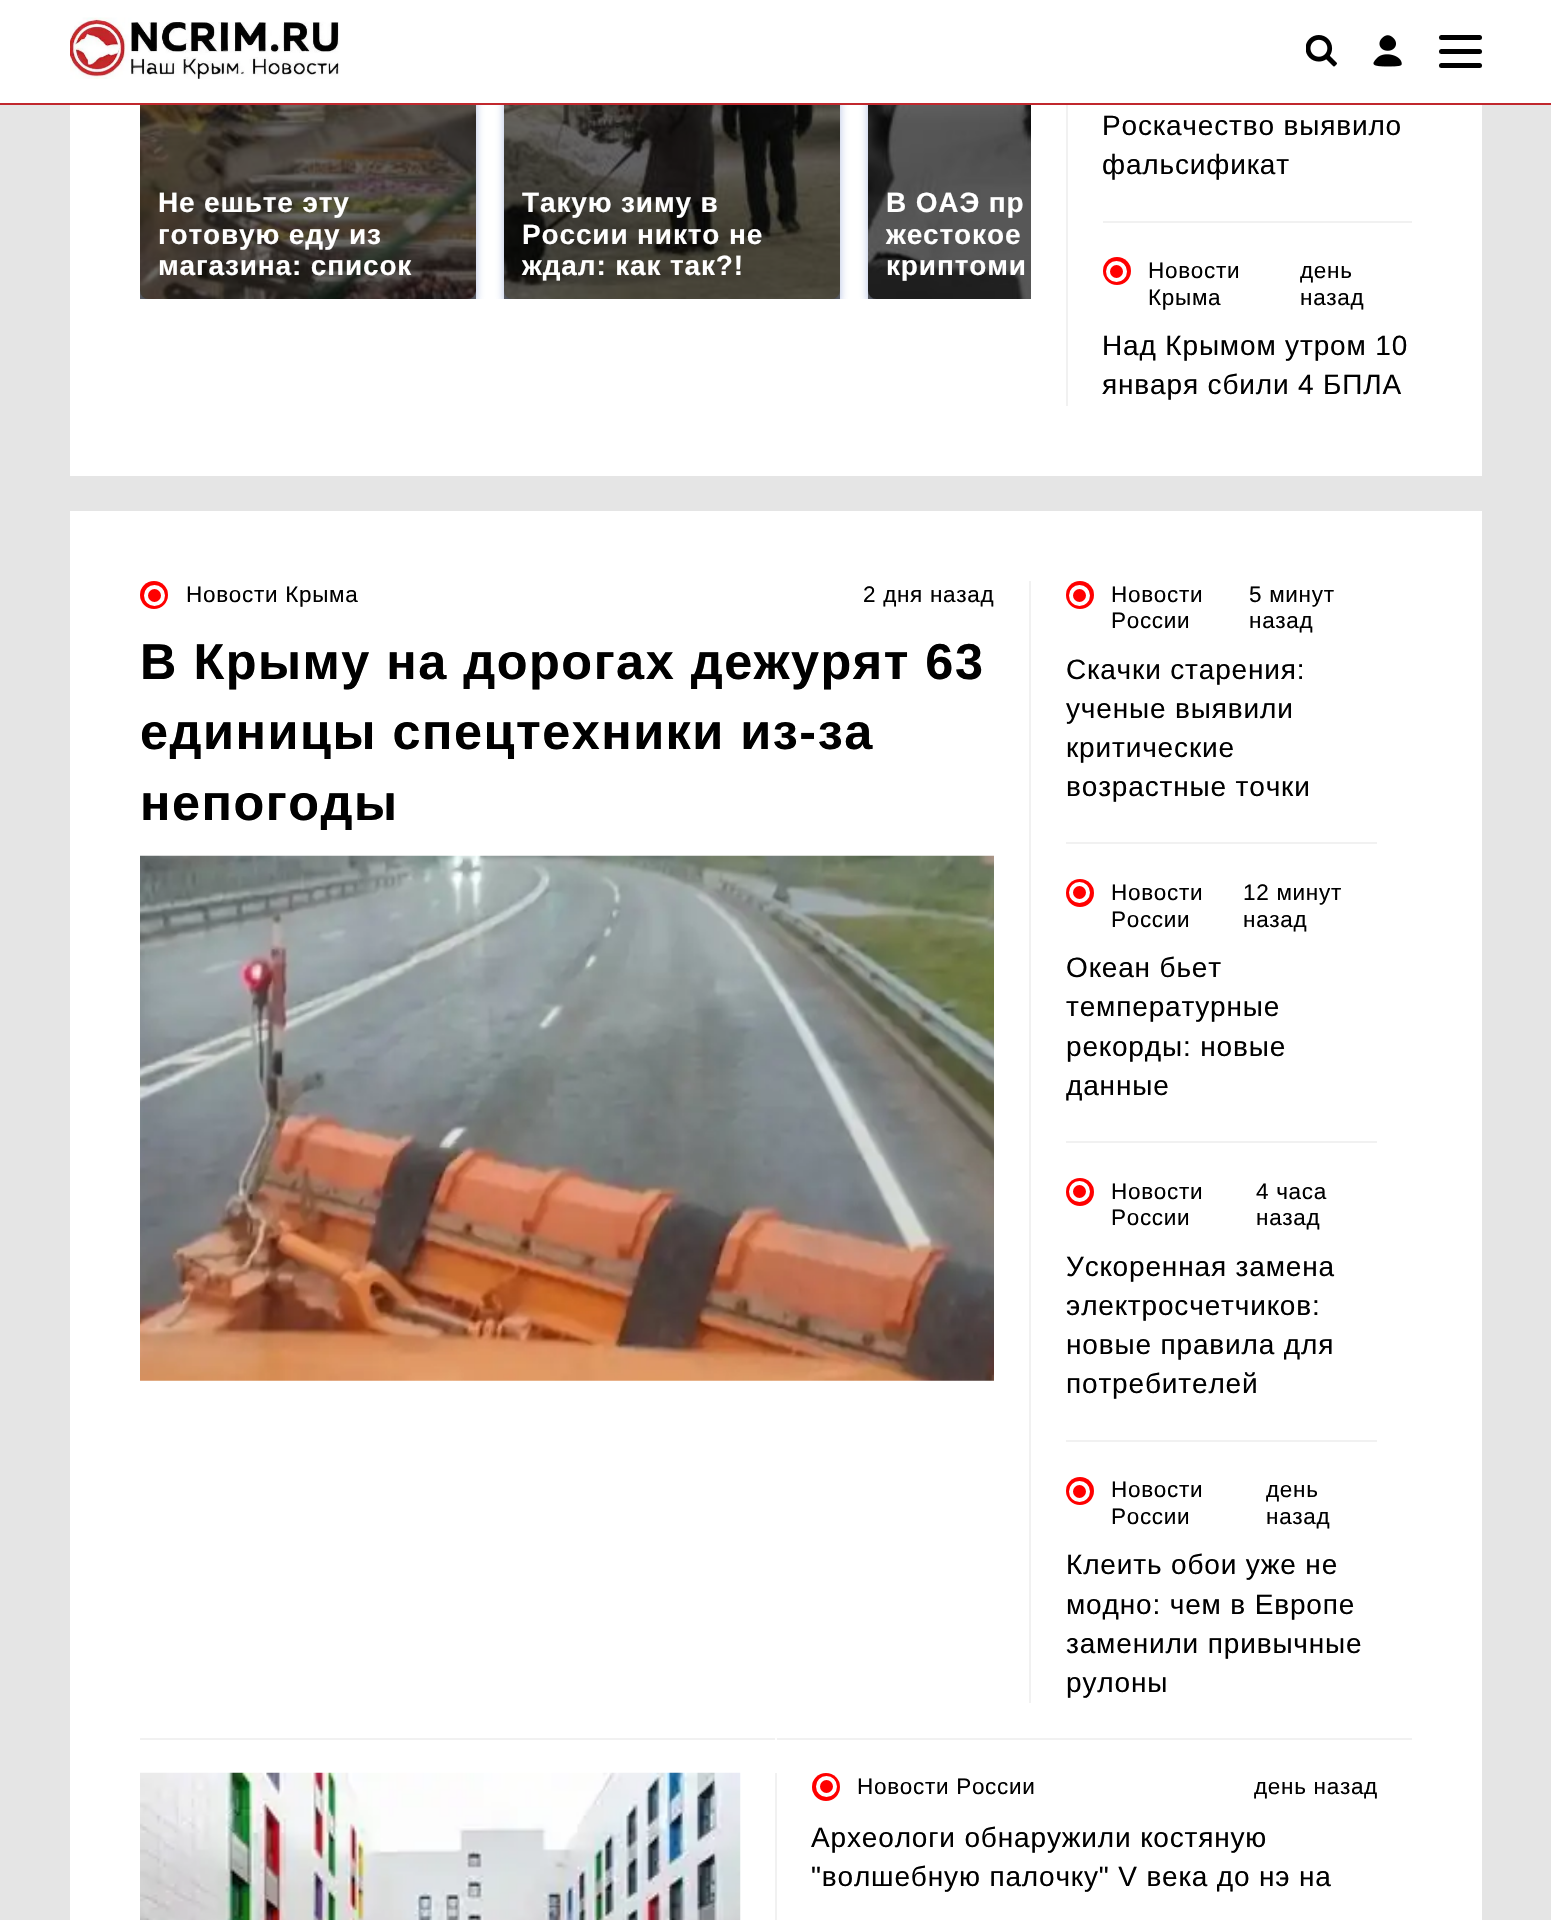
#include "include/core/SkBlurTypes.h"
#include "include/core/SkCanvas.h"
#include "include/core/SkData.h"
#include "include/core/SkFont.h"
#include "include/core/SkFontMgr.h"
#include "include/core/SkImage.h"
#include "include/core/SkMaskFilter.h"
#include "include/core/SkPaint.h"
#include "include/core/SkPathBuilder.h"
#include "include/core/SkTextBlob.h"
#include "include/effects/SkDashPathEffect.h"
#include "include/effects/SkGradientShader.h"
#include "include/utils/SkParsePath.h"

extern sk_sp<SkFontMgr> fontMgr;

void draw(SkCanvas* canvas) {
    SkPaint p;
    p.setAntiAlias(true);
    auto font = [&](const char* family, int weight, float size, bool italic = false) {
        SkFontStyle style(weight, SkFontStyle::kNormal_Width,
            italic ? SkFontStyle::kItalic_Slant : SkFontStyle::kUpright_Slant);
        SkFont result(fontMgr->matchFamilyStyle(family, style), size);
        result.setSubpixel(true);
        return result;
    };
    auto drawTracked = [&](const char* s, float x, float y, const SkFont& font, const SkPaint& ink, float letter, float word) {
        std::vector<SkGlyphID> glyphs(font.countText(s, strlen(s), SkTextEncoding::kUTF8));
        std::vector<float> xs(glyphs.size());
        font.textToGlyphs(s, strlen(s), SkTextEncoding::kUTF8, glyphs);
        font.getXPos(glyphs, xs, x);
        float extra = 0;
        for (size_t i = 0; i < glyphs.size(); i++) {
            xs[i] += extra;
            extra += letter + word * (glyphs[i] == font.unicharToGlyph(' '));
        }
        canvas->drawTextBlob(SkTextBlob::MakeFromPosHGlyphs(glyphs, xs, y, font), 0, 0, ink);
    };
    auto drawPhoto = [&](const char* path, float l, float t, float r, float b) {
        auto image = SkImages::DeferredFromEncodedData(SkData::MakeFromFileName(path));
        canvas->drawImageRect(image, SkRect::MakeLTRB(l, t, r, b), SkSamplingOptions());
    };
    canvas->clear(0xFFE5E5E5);
    p.setColor(0xFFFFFFFF);
    canvas->drawRect(SkRect::MakeLTRB(70, 105, 1482, 476), p);
    canvas->save();
    canvas->clipRect(SkRect::MakeLTRB(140, 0, 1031, 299));
    p.setColor(0x4D00299E);
    p.setMaskFilter(SkMaskFilter::MakeBlur(kNormal_SkBlurStyle, 4.5f));
    canvas->drawRoundRect(SkRect::MakeLTRB(140, -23, 476, 308), 9, 9, p);
    p.setMaskFilter(nullptr);
    p.setMaskFilter(SkMaskFilter::MakeBlur(kNormal_SkBlurStyle, 4.5f));
    canvas->drawRoundRect(SkRect::MakeLTRB(504, -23, 840, 308), 9, 9, p);
    p.setMaskFilter(nullptr);
    canvas->restore();
    p.setColor(0xFFF1F1F1);
    canvas->drawRect(SkRect::MakeLTRB(1066, 105, 1068, 406), p);
    canvas->drawRect(SkRect::MakeLTRB(1103, 221, 1412, 223), p);
    p.setColor(0xFFFF0000);
    canvas->drawCircle(1117, 271, 14, p);
    p.setStyle(SkPaint::kStroke_Style);
    p.setStrokeWidth(4);
    p.setColor(0xFFFFFFFF);
    canvas->drawCircle(1116.5f, 271.5f, 8.5f, p);
    canvas->save();
    canvas->clipRect(SkRect::MakeLTRB(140, 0, 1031, 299));
    p.setStyle(SkPaint::kFill_Style);
    p.setColor(0x4D00299E);
    p.setMaskFilter(SkMaskFilter::MakeBlur(kNormal_SkBlurStyle, 4.5f));
    canvas->drawRoundRect(SkRect::MakeLTRB(868, -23, 1204, 308), 9, 9, p);
    p.setMaskFilter(nullptr);
    canvas->restore();
    p.setColor(0xFFFFFFFF);
    canvas->drawRect(SkRect::MakeLTRB(0, 0, 1551, 103), p);
    p.setColor(0xFFC1272D);
    canvas->drawRect(SkRect::MakeLTRB(0, 103, 1551, 105), p);
    drawPhoto("media/1.png", 70, 17, 340, 79);
    drawPhoto("media/2.png", 1306, 35, 1337, 67);
    drawPhoto("media/3.png", 1373, 35, 1402, 67);
    p.setColor(0xFF000000);
    canvas->drawRoundRect(SkRect::MakeLTRB(1439, 35, 1482, 40), 2.5f, 2.5f, p);
    canvas->drawRoundRect(SkRect::MakeLTRB(1439, 49, 1482, 54), 2.5f, 2.5f, p);
    canvas->drawRoundRect(SkRect::MakeLTRB(1439, 63, 1482, 68), 2.5f, 2.5f, p);
    drawPhoto("media/4.png", 140, 105, 476, 299);
    {
        const SkColor colors[] = {0x00000000, 0x99000000};
        const float stops[] = {0, 0.61f};
        const SkPoint ends[] = {{308, -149}, {308, 299}};
        p.setShader(SkGradientShader::MakeLinear(ends, colors, stops, 2, SkTileMode::kClamp));
        p.setAlpha(255);
    }
    canvas->drawRect(SkRect::MakeLTRB(140, 105, 476, 299), p);
    auto font1 = font("Liberation Sans", 700, 28);
    p.setShader(nullptr);
    p.setColor(0xFFFFFFFF);
    {
        const struct { const char* s; float x, y; } items[] = {
            {"Не ешьте эту", 158, 212},
            {"готовую еду из", 158, 244},
            {"магазина: список", 158, 275},
        };
        for (auto [s, x, y] : items) {
            drawTracked(s, x, y, font1, p, 0.85f, 0);
        }
    }
    drawPhoto("media/5.png", 504, 105, 840, 299);
    {
        const SkColor colors[] = {0x00000000, 0x99000000};
        const float stops[] = {0, 0.61f};
        const SkPoint ends[] = {{672, -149}, {672, 299}};
        p.setShader(SkGradientShader::MakeLinear(ends, colors, stops, 2, SkTileMode::kClamp));
        p.setAlpha(255);
    }
    canvas->drawRect(SkRect::MakeLTRB(504, 105, 840, 299), p);
    p.setShader(nullptr);
    p.setColor(0xFFFFFFFF);
    {
        const struct { const char* s; float x, y; } items[] = {
            {"Такую зиму в", 522, 212},
            {"России никто не", 522, 244},
            {"ждал: как так?!", 522, 275},
        };
        for (auto [s, x, y] : items) {
            drawTracked(s, x, y, font1, p, 0.85f, 0);
        }
    }
    drawPhoto("media/6.png", 868, 105, 1031, 299);
    {
        const SkColor colors[] = {0x00000000, 0x99000000};
        const float stops[] = {0, 0.61f};
        const SkPoint ends[] = {{1036, -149}, {1036, 299}};
        p.setShader(SkGradientShader::MakeLinear(ends, colors, stops, 2, SkTileMode::kClamp));
        p.setAlpha(255);
    }
    canvas->drawRect(SkRect::MakeLTRB(868, 105, 1031, 299), p);
    p.setShader(nullptr);
    p.setColor(0xFFFFFFFF);
    {
        const struct { const char* s; float x, y; } items[] = {
            {"В ОАЭ пр", 886, 212},
            {"жестокое", 886, 244},
            {"криптоми", 886, 275},
        };
        for (auto [s, x, y] : items) {
            drawTracked(s, x, y, font1, p, 0.85f, 0);
        }
    }
    auto font2 = font("Liberation Sans", 400, 28);
    p.setColor(0xFF000000);
    drawTracked("Роскачество выявило", 1102, 135, font2, p, 0.85f, 0);
    drawTracked("фальсификат", 1102, 174, font2, p, 0.85f, 0);
    auto font3 = font("Liberation Sans", 400, 22.5f);
    {
        const struct { const char* s; float x, y; } items[] = {
            {"Новости", 1148, 278},
            {"Крыма", 1148, 305},
            {"день", 1300, 278},
            {"назад", 1300, 305},
        };
        for (auto [s, x, y] : items) {
            drawTracked(s, x, y, font3, p, 0.7f, 0);
        }
    }
    drawTracked("Над Крымом утром 10", 1102, 355, font2, p, 0.85f, 0);
    drawTracked("января сбили 4 БПЛА", 1102, 394, font2, p, 0.85f, 0);
    p.setColor(0xFFFFFFFF);
    canvas->drawRect(SkRect::MakeLTRB(70, 511, 1482, 1920), p);
    p.setColor(0xFFF1F1F1);
    canvas->drawRect(SkRect::MakeLTRB(1029, 581, 1031, 1703), p);
    p.setColor(0xFFFF0000);
    canvas->drawCircle(154, 595, 14, p);
    p.setStyle(SkPaint::kStroke_Style);
    p.setColor(0xFFFFFFFF);
    canvas->drawCircle(154.5f, 595.5f, 8.5f, p);
    p.setStyle(SkPaint::kFill_Style);
    p.setColor(0xFF000000);
    drawTracked("Новости Крыма", 186, 602, font3, p, 0.7f, 0);
    drawTracked("2 дня назад", 863, 602, font3, p, 0.7f, 0);
    auto font4 = font("Liberation Sans", 700, 50.4f);
    {
        const struct { const char* s; float x, y; } items[] = {
            {"В Крыму на дорогах дежурят 63", 140, 679},
            {"единицы спецтехники из-за", 140, 749},
            {"непогоды", 140, 820},
        };
        for (auto [s, x, y] : items) {
            drawTracked(s, x, y, font4, p, 1.5f, 0);
        }
    }
    drawPhoto("media/7.png", 140, 855, 994, 1381);
    p.setColor(0xFFF1F1F1);
    canvas->drawRect(SkRect::MakeLTRB(1066, 842, 1377, 844), p);
    p.setColor(0xFFFF0000);
    canvas->drawCircle(1080, 595, 14, p);
    p.setStyle(SkPaint::kStroke_Style);
    p.setColor(0xFFFFFFFF);
    canvas->drawCircle(1079.5f, 595.5f, 8.5f, p);
    p.setStyle(SkPaint::kFill_Style);
    p.setColor(0xFF000000);
    {
        const struct { const char* s; float x, y; } items[] = {
            {"Новости", 1111, 602},
            {"России", 1111, 628},
            {"5 минут", 1249, 602},
            {"назад", 1249, 628},
        };
        for (auto [s, x, y] : items) {
            drawTracked(s, x, y, font3, p, 0.7f, 0);
        }
    }
    {
        const struct { const char* s; float x, y; } items[] = {
            {"Скачки старения:", 1066, 679},
            {"ученые выявили", 1066, 718},
            {"критические", 1066, 757},
            {"возрастные точки", 1066, 796},
        };
        for (auto [s, x, y] : items) {
            drawTracked(s, x, y, font2, p, 0.85f, 0);
        }
    }
    p.setColor(0xFFF1F1F1);
    canvas->drawRect(SkRect::MakeLTRB(1066, 1141, 1377, 1143), p);
    p.setColor(0xFFFF0000);
    canvas->drawCircle(1080, 893, 14, p);
    p.setStyle(SkPaint::kStroke_Style);
    p.setColor(0xFFFFFFFF);
    canvas->drawCircle(1079.5f, 892.5f, 8.5f, p);
    p.setStyle(SkPaint::kFill_Style);
    p.setColor(0xFF000000);
    {
        const struct { const char* s; float x, y; } items[] = {
            {"Новости", 1111, 900},
            {"России", 1111, 927},
            {"12 минут", 1243, 900},
            {"назад", 1243, 927},
        };
        for (auto [s, x, y] : items) {
            drawTracked(s, x, y, font3, p, 0.7f, 0);
        }
    }
    {
        const struct { const char* s; float x, y; } items[] = {
            {"Океан бьет", 1066, 977},
            {"температурные", 1066, 1016},
            {"рекорды: новые", 1066, 1056},
            {"данные", 1066, 1095},
        };
        for (auto [s, x, y] : items) {
            drawTracked(s, x, y, font2, p, 0.85f, 0);
        }
    }
    p.setColor(0xFFF1F1F1);
    canvas->drawRect(SkRect::MakeLTRB(1066, 1440, 1377, 1442), p);
    p.setColor(0xFFFF0000);
    canvas->drawCircle(1080, 1192, 14, p);
    p.setStyle(SkPaint::kStroke_Style);
    p.setColor(0xFFFFFFFF);
    canvas->drawCircle(1079.5f, 1191.5f, 8.5f, p);
    p.setStyle(SkPaint::kFill_Style);
    p.setColor(0xFF000000);
    {
        const struct { const char* s; float x, y; } items[] = {
            {"Новости", 1111, 1199},
            {"России", 1111, 1225},
            {"4 часа", 1256, 1199},
            {"назад", 1256, 1225},
        };
        for (auto [s, x, y] : items) {
            drawTracked(s, x, y, font3, p, 0.7f, 0);
        }
    }
    {
        const struct { const char* s; float x, y; } items[] = {
            {"Ускоренная замена", 1066, 1276},
            {"электросчетчиков:", 1066, 1315},
            {"новые правила для", 1066, 1354},
            {"потребителей", 1066, 1393},
        };
        for (auto [s, x, y] : items) {
            drawTracked(s, x, y, font2, p, 0.85f, 0);
        }
    }
    p.setColor(0xFFFF0000);
    canvas->drawCircle(1080, 1491, 14, p);
    p.setStyle(SkPaint::kStroke_Style);
    p.setColor(0xFFFFFFFF);
    canvas->drawCircle(1079.5f, 1491.5f, 8.5f, p);
    p.setStyle(SkPaint::kFill_Style);
    p.setColor(0xFF000000);
    {
        const struct { const char* s; float x, y; } items[] = {
            {"Новости", 1111, 1497},
            {"России", 1111, 1524},
            {"день", 1266, 1497},
            {"назад", 1266, 1524},
        };
        for (auto [s, x, y] : items) {
            drawTracked(s, x, y, font3, p, 0.7f, 0);
        }
    }
    {
        const struct { const char* s; float x, y; } items[] = {
            {"Клеить обои уже не", 1066, 1574},
            {"модно: чем в Европе", 1066, 1614},
            {"заменили привычные", 1066, 1653},
            {"рулоны", 1066, 1692},
        };
        for (auto [s, x, y] : items) {
            drawTracked(s, x, y, font2, p, 0.85f, 0);
        }
    }
    p.setColor(0xFFF1F1F1);
    canvas->drawRect(SkRect::MakeLTRB(775, 1773, 777, 1920), p);
    canvas->drawRect(SkRect::MakeLTRB(140, 1738, 775, 1740), p);
    drawPhoto("media/8.png", 140, 1772, 741, 1920);
    canvas->drawRect(SkRect::MakeLTRB(777, 1738, 1412, 1740), p);
    p.setColor(0xFFFF0000);
    canvas->drawCircle(826, 1787, 14, p);
    p.setStyle(SkPaint::kStroke_Style);
    p.setColor(0xFFFFFFFF);
    canvas->drawCircle(826.5f, 1786.5f, 8.5f, p);
    p.setStyle(SkPaint::kFill_Style);
    p.setColor(0xFF000000);
    drawTracked("Новости России", 857, 1794, font3, p, 0.7f, 0);
    drawTracked("день назад", 1254, 1794, font3, p, 0.7f, 0);
    drawTracked("Археологи обнаружили костяную", 811, 1847, font2, p, 0.85f, 0);
    drawTracked("\"волшебную палочку\" V века до нэ на", 811, 1886, font2, p, 0.85f, 0);
}
